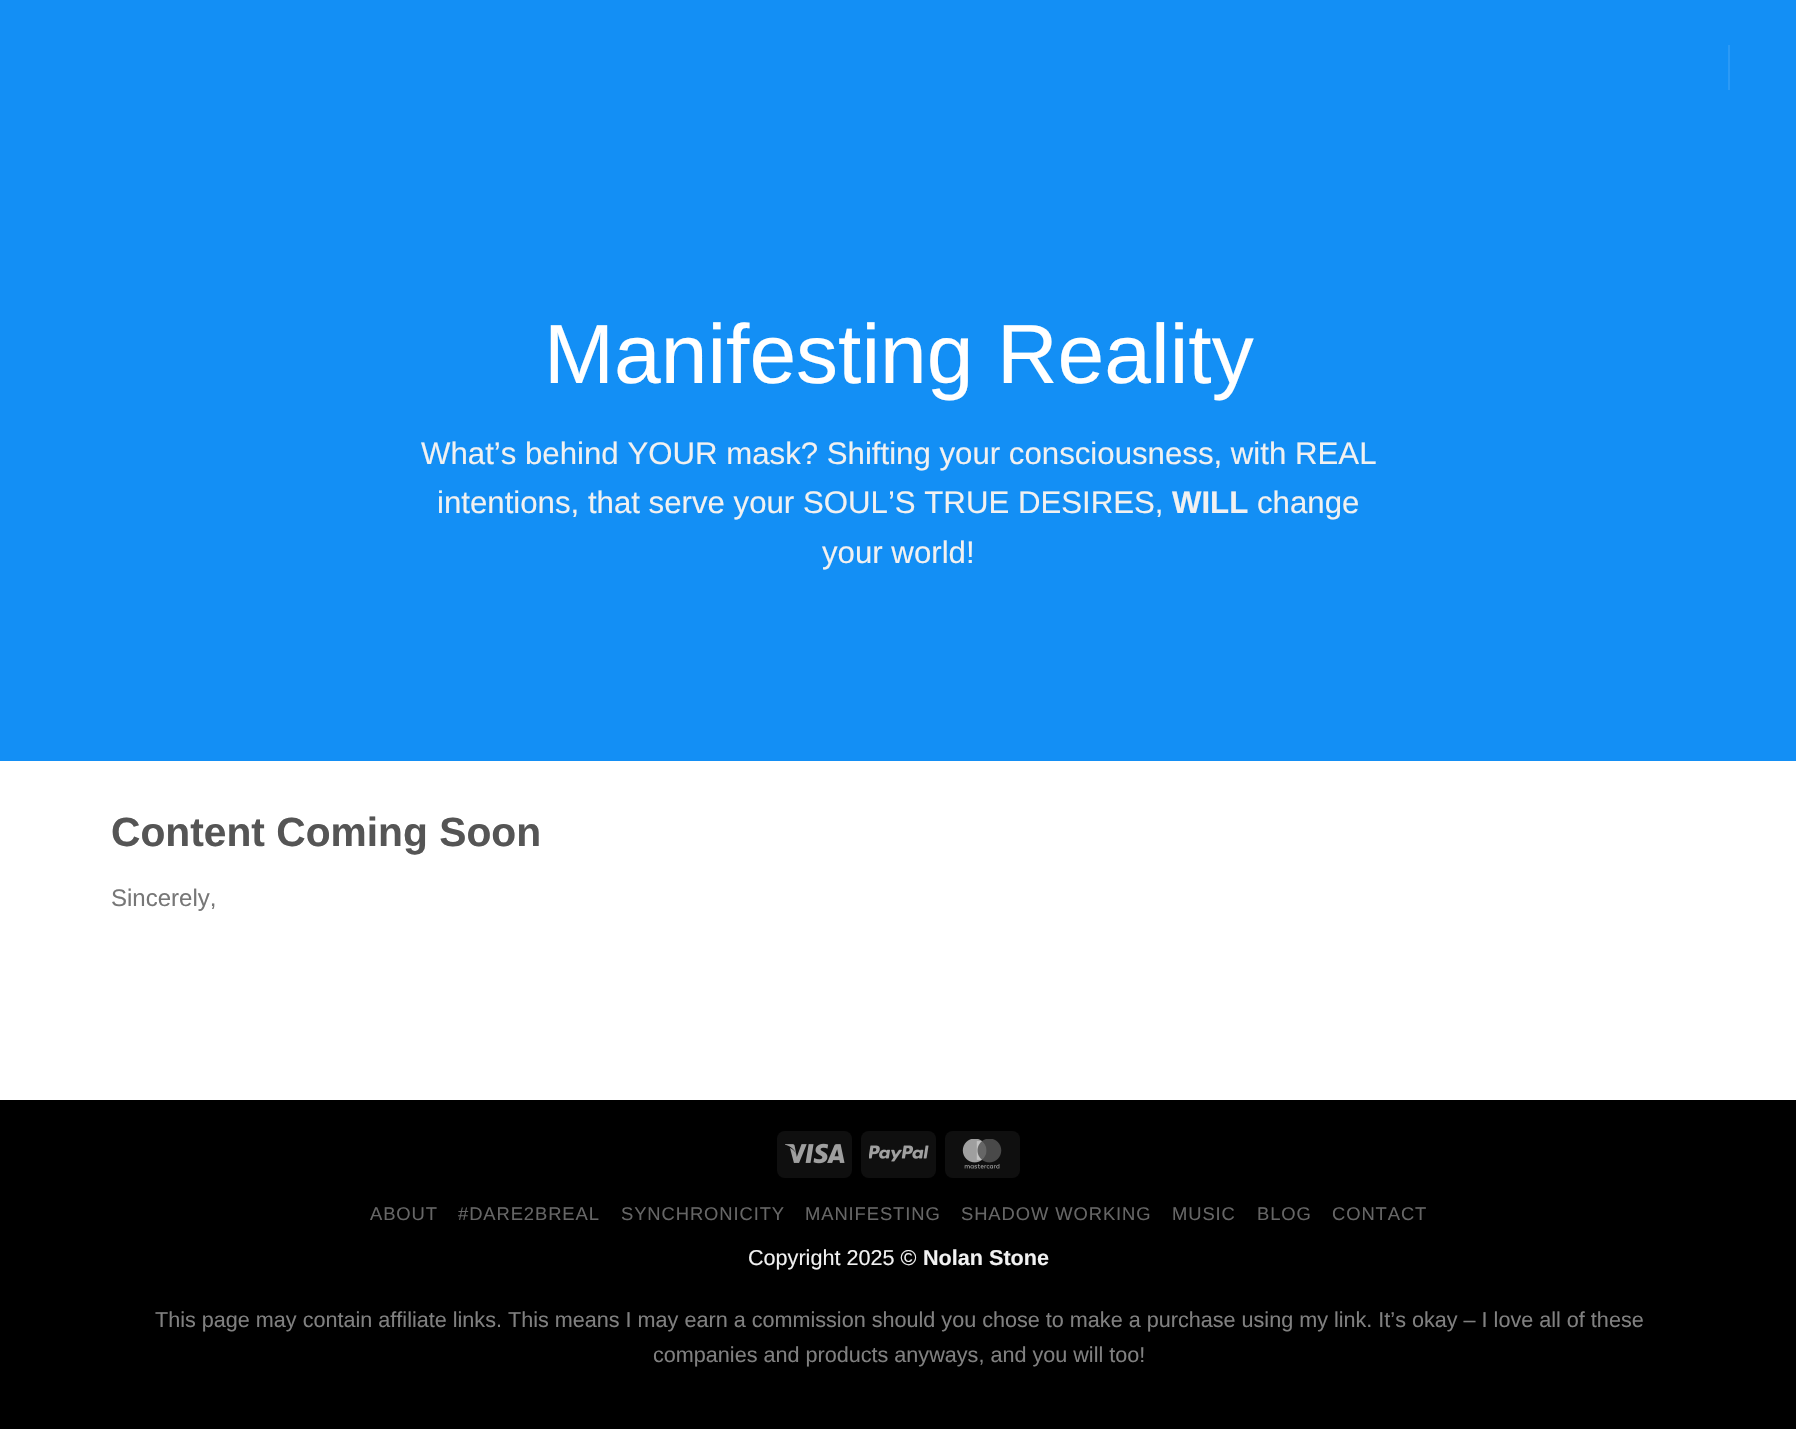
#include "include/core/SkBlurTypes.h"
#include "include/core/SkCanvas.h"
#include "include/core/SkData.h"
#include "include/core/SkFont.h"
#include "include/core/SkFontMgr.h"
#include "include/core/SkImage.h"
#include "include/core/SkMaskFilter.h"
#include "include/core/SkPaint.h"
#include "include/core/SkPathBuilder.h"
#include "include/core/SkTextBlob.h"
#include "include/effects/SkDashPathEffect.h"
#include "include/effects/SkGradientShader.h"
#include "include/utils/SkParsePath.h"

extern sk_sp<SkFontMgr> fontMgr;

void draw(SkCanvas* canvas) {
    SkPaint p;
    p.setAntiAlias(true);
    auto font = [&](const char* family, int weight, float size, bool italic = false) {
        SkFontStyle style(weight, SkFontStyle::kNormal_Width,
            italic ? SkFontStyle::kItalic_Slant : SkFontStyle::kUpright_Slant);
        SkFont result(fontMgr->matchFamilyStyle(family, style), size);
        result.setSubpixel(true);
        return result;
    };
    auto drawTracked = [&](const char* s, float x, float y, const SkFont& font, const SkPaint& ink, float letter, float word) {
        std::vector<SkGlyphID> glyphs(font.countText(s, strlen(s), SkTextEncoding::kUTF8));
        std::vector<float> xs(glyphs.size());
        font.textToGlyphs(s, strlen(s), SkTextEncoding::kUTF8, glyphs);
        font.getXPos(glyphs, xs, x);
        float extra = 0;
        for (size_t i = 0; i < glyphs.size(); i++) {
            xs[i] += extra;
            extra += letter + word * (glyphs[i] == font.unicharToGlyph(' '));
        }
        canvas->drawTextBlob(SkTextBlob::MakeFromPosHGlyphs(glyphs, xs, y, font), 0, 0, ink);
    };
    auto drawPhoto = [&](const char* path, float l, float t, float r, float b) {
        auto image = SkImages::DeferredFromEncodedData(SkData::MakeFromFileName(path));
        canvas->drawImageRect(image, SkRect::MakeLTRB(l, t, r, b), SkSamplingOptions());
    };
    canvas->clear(0xFF000000);
    {
        const struct { float l, t, r, b; SkColor color; } items[] = {
            {0, 761, 1796, 1100, 0xFFFFFFFF},
            {0, 0, 1796, 761, 0xFF138FF5},
            {1728, 45, 1730, 90, 0xFF2B9AF6},
        };
        for (auto [l, t, r, b, color] : items) {
            p.setColor(color);
            canvas->drawRect(SkRect::MakeLTRB(l, t, r, b), p);
        }
    }
    auto font1 = font("Liberation Sans", 400, 84);
    p.setColor(0xFFFFFFFF);
    canvas->drawString("Manifesting Reality", 544, 383, font1, p);
    auto font2 = font("Liberation Sans", 400, 31.2f);
    p.setColor(0xFFF1F1F1);
    canvas->drawString("What’s behind YOUR mask? Shifting your consciousness, with REAL", 421, 464, font2, p);
    canvas->drawString("intentions, that serve your SOUL’S TRUE DESIRES,", 437, 513, font2, p);
    auto font3 = font("Liberation Sans", 700, 31.2f);
    canvas->drawString("WILL", 1172, 513, font3, p);
    canvas->drawString("change", 1257, 513, font2, p);
    canvas->drawString("your world!", 822, 563, font2, p);
    auto font4 = font("Liberation Sans", 700, 40.75f);
    p.setColor(0xFF555555);
    canvas->drawString("Content Coming Soon", 111, 846, font4, p);
    auto font5 = font("Liberation Sans", 400, 24);
    p.setColor(0xFF777777);
    canvas->drawString("Sincerely,", 111, 906, font5, p);
    p.setColor(0xFF0F0F0F);
    canvas->drawRoundRect(SkRect::MakeLTRB(777, 1131, 852, 1178), 8, 8, p);
    drawPhoto("media/1.png", 785, 1143, 845, 1164);
    canvas->drawRoundRect(SkRect::MakeLTRB(861, 1131, 936, 1178), 8, 8, p);
    drawPhoto("media/2.png", 869, 1145, 929, 1162);
    canvas->drawRoundRect(SkRect::MakeLTRB(945, 1131, 1020, 1178), 8, 8, p);
    drawPhoto("media/3.png", 962, 1139, 1002, 1169);
    auto font6 = font("Liberation Sans", 400, 18.4f);
    p.setColor(0xFF666666);
    {
        const struct { const char* s; float x, y; } items[] = {
            {"ABOUT", 370, 1220},
            {"#DARE2BREAL", 458, 1220},
            {"SYNCHRONICITY", 621, 1220},
            {"MANIFESTING", 805, 1220},
            {"SHADOW WORKING", 961, 1220},
            {"MUSIC", 1172, 1220},
            {"BLOG", 1257, 1220},
            {"CONTACT", 1332, 1220},
        };
        for (auto [s, x, y] : items) {
            drawTracked(s, x, y, font6, p, 0.9f, 0);
        }
    }
    auto font7 = font("Liberation Sans", 400, 21.6f);
    p.setColor(0xFFF1F1F1);
    canvas->drawString("Copyright 2025 ©", 748, 1265, font7, p);
    auto font8 = font("Liberation Sans", 700, 21.6f);
    canvas->drawString("Nolan Stone", 923, 1265, font8, p);
    p.setColor(0xFF808080);
    canvas->drawString("This page may contain affiliate links. This means I may earn a commission should you chose to make a purchase using my link. It’s okay – I love all of these", 155, 1327, font7, p);
    canvas->drawString("companies and products anyways, and you will too!", 653, 1362, font7, p);
}
